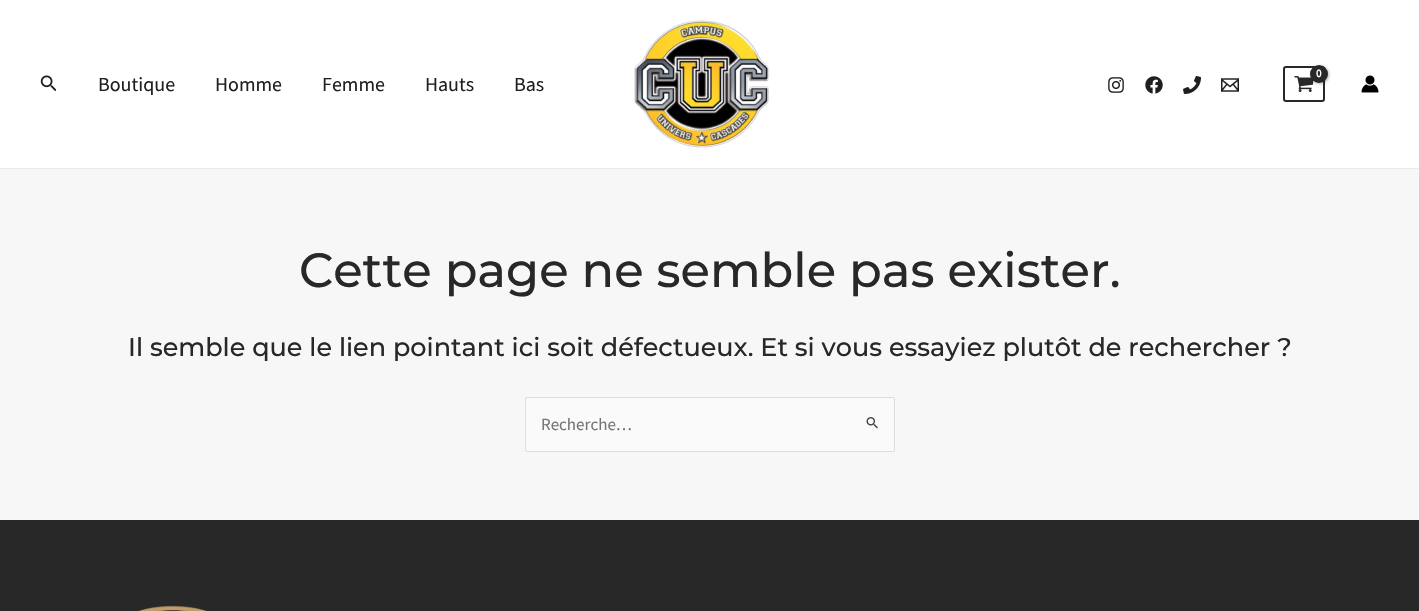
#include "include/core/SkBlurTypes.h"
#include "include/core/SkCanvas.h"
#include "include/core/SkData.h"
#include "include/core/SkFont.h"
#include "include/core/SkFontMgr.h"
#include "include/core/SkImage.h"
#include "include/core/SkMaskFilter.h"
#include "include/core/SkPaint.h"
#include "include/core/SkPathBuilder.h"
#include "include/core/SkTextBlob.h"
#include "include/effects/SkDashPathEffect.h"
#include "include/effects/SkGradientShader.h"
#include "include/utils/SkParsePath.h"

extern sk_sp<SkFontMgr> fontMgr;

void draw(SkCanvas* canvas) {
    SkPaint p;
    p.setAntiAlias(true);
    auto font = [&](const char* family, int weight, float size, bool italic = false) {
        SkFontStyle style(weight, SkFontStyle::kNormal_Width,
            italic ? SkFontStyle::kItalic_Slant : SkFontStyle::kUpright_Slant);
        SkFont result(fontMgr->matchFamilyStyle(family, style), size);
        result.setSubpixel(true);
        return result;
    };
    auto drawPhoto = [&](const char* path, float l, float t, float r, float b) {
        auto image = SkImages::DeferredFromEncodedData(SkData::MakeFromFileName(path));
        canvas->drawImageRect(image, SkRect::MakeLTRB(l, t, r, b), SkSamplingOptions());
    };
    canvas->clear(0xFFF7F7F7);
    p.setColor(0xFFFFFFFF);
    canvas->drawRect(SkRect::MakeLTRB(0, 0, 1419, 168), p);
    p.setColor(0xFFEAEAEA);
    canvas->drawRect(SkRect::MakeLTRB(0, 168, 1419, 169), p);
    drawPhoto("media/1.png", 634, 20, 770, 148);
    p.setStyle(SkPaint::kStroke_Style);
    p.setStrokeWidth(2);
    p.setColor(0xFF282828);
    canvas->drawRoundRect(SkRect::MakeLTRB(1284, 67, 1324, 101), 2, 2, p);
    drawPhoto("media/2.png", 1294, 76, 1314, 92);
    p.setStyle(SkPaint::kFill_Style);
    p.setColor(0x4D000000);
    p.setMaskFilter(SkMaskFilter::MakeBlur(kNormal_SkBlurStyle, 1.5f));
    canvas->drawRoundRect(SkRect::MakeLTRB(1311, 66, 1329, 84), 9, 9, p);
    p.setMaskFilter(nullptr);
    p.setColor(0xFF282828);
    canvas->drawCircle(1319, 74, 9, p);
    auto font1 = font("Source Sans Pro", 700, 11);
    p.setColor(0xFFFFFFFF);
    canvas->drawString("0", 1316, 77, font1, p);
    drawPhoto("media/3.png", 1108, 77, 1124, 93);
    drawPhoto("media/4.png", 1145, 76, 1163, 94);
    drawPhoto("media/5.png", 1183, 76, 1201, 94);
    drawPhoto("media/6.png", 1221, 78, 1239, 92);
    drawPhoto("media/7.png", 1361, 75, 1379, 93);
    drawPhoto("media/8.png", 40, 75, 56, 92);
    auto font2 = font("Source Sans Pro", 400, 20);
    p.setColor(0xFF1F1F1F);
    {
        const struct { const char* s; float x, y; } items[] = {
            {"Boutique", 98, 91},
            {"Homme", 215, 91},
            {"Femme", 322, 91},
            {"Hauts", 425, 91},
            {"Bas", 514, 91},
        };
        for (auto [s, x, y] : items) {
            canvas->drawString(s, x, y, font2, p);
        }
    }
    auto font3 = font("Montserrat", 500, 48);
    p.setColor(0xFF282828);
    canvas->drawString("Cette page ne semble pas exister.", 299, 287, font3, p);
    auto font4 = font("Montserrat", 500, 25.5f);
    canvas->drawString("Il semble que le lien pointant ici soit défectueux. Et si vous essayiez plutôt de rechercher ?", 128, 356, font4, p);
    p.setColor(0xFFFAFAFA);
    canvas->drawRoundRect(SkRect::MakeLTRB(525.5f, 397.5f, 894.5f, 451.5f), 1.5f, 1.5f, p);
    p.setStyle(SkPaint::kStroke_Style);
    p.setStrokeWidth(1);
    p.setColor(0xFFDDDDDD);
    canvas->drawRoundRect(SkRect::MakeLTRB(525.5f, 397.5f, 894.5f, 451.5f), 1.5f, 1.5f, p);
    auto font5 = font("Source Sans Pro", 400, 17);
    p.setStyle(SkPaint::kFill_Style);
    p.setColor(0xFF757575);
    canvas->drawString("Recherche…", 541, 430, font5, p);
    drawPhoto("media/9.png", 866, 417, 878, 429);
    p.setColor(0xFF282828);
    canvas->drawRect(SkRect::MakeLTRB(0, 520, 1419, 611), p);
    drawPhoto("media/10.png", 137, 605, 208, 611);
}
